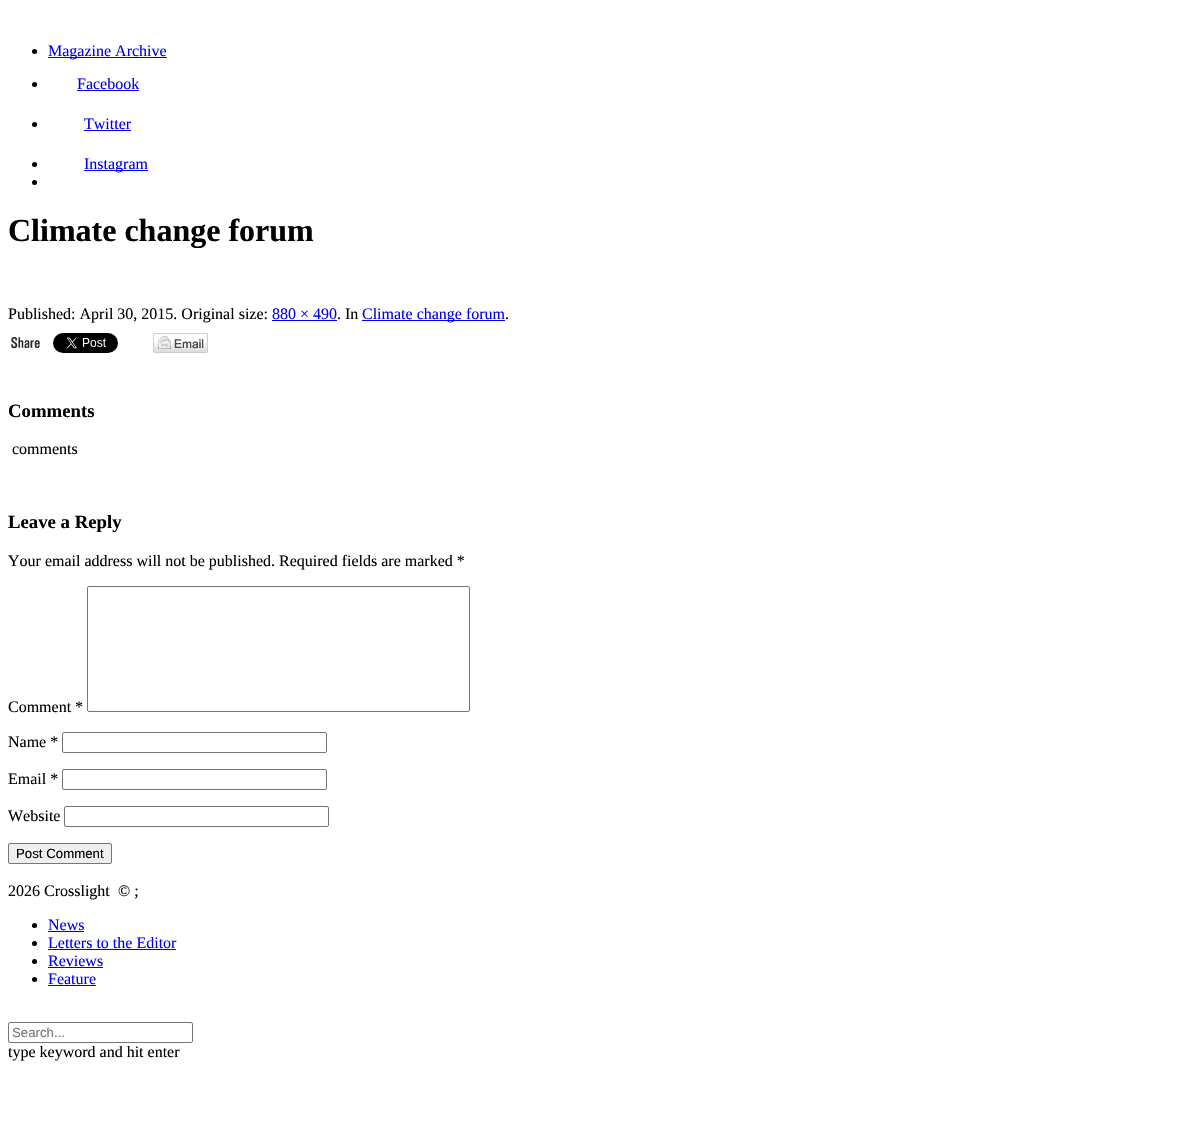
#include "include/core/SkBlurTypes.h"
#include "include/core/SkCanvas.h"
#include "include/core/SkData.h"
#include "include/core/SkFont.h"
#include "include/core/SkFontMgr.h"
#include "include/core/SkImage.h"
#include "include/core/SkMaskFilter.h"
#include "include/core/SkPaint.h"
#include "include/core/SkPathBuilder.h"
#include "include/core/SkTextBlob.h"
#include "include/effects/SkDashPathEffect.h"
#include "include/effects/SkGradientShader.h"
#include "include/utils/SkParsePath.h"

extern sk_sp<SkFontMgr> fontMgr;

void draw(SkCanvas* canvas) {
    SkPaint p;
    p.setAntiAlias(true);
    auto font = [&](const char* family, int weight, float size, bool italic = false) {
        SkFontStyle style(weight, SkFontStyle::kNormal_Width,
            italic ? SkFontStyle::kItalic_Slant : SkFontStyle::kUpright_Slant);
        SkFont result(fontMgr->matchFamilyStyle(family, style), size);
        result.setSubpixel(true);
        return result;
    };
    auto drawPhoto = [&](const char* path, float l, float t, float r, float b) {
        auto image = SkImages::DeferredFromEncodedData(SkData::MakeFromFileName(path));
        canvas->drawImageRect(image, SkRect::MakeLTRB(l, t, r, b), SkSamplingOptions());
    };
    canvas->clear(0xFFFFFFFF);
    p.setColor(0xFF000000);
    canvas->drawCircle(34.5f, 51.5f, 2.5f, p);
    p.setColor(0xFF0000EE);
    canvas->drawRect(SkRect::MakeLTRB(48, 57, 167, 58), p);
    auto font1 = font("Liberation Serif", 400, 16);
    canvas->drawString("Magazine Archive", 48, 56, font1, p);
    p.setColor(0xFF000000);
    canvas->drawCircle(34.5f, 84.5f, 2.5f, p);
    p.setColor(0xFF0000EE);
    canvas->drawString("Facebook", 77, 89, font1, p);
    canvas->drawRect(SkRect::MakeLTRB(77, 90, 139, 91), p);
    p.setColor(0xFF000000);
    canvas->drawCircle(34.5f, 124.5f, 2.5f, p);
    p.setColor(0xFF0000EE);
    canvas->drawString("Twitter", 84, 129, font1, p);
    canvas->drawRect(SkRect::MakeLTRB(84, 130, 131, 131), p);
    p.setColor(0xFF000000);
    canvas->drawCircle(34.5f, 164.5f, 2.5f, p);
    p.setColor(0xFF0000EE);
    canvas->drawRect(SkRect::MakeLTRB(84, 170, 148, 171), p);
    canvas->drawString("Instagram", 84, 169, font1, p);
    p.setColor(0xFF000000);
    canvas->drawCircle(34.5f, 182.5f, 2.5f, p);
    auto font2 = font("Liberation Serif", 700, 32);
    canvas->drawString("Climate change forum", 8, 241, font2, p);
    canvas->drawString("Published: April 30, 2015. Original size:", 8, 319, font1, p);
    p.setColor(0xFF0000EE);
    canvas->drawString("880 × 490", 272, 319, font1, p);
    canvas->drawRect(SkRect::MakeLTRB(272, 320, 337, 321), p);
    p.setColor(0xFF000000);
    canvas->drawString(". In", 337, 319, font1, p);
    p.setColor(0xFF0000EE);
    canvas->drawRect(SkRect::MakeLTRB(362, 320, 505, 321), p);
    canvas->drawString("Climate change forum", 362, 319, font1, p);
    p.setColor(0xFF000000);
    canvas->drawString(".", 505, 319, font1, p);
    drawPhoto("media/1.png", 11, 336, 40, 349);
    drawPhoto("media/2.png", 53, 333, 118, 353);
    drawPhoto("media/3.png", 153, 333, 208, 353);
    auto font3 = font("Liberation Serif", 700, 18.75f);
    canvas->drawString("Comments", 8, 417, font3, p);
    canvas->drawString("comments", 12, 454, font1, p);
    canvas->drawString("Leave a Reply", 8, 528, font3, p);
    canvas->drawString("Your email address will not be published. Required fields are marked *", 8, 566, font1, p);
    canvas->drawString("Comment *", 8, 712, font1, p);
    p.setStyle(SkPaint::kStroke_Style);
    p.setStrokeWidth(1);
    p.setColor(0xFF767676);
    canvas->drawRoundRect(SkRect::MakeLTRB(87.5f, 586.5f, 469.5f, 711.5f), 1.5f, 1.5f, p);
    p.setStyle(SkPaint::kFill_Style);
    p.setColor(0xFF000000);
    canvas->drawString("Name *", 8, 747, font1, p);
    p.setStyle(SkPaint::kStroke_Style);
    p.setColor(0xFF767676);
    canvas->drawRoundRect(SkRect::MakeLTRB(62.5f, 732.5f, 326.5f, 752.5f), 1.5f, 1.5f, p);
    p.setStyle(SkPaint::kFill_Style);
    p.setColor(0xFF000000);
    canvas->drawString("Email *", 8, 784, font1, p);
    p.setStyle(SkPaint::kStroke_Style);
    p.setColor(0xFF767676);
    canvas->drawRoundRect(SkRect::MakeLTRB(62.5f, 769.5f, 326.5f, 789.5f), 1.5f, 1.5f, p);
    p.setStyle(SkPaint::kFill_Style);
    p.setColor(0xFF000000);
    canvas->drawString("Website", 8, 821, font1, p);
    p.setStyle(SkPaint::kStroke_Style);
    p.setColor(0xFF767676);
    canvas->drawRoundRect(SkRect::MakeLTRB(64.5f, 806.5f, 328.5f, 826.5f), 1.5f, 1.5f, p);
    p.setStyle(SkPaint::kFill_Style);
    p.setColor(0xFFEFEFEF);
    canvas->drawRoundRect(SkRect::MakeLTRB(8.5f, 843.5f, 111.5f, 863.5f), 1.5f, 1.5f, p);
    p.setStyle(SkPaint::kStroke_Style);
    p.setColor(0xFF767676);
    canvas->drawRoundRect(SkRect::MakeLTRB(8.5f, 843.5f, 111.5f, 863.5f), 1.5f, 1.5f, p);
    auto font4 = font("Liberation Sans", 400, 13.25f);
    p.setStyle(SkPaint::kFill_Style);
    p.setColor(0xFF000000);
    canvas->drawString("Post Comment", 16, 858, font4, p);
    canvas->drawString("2026 Crosslight", 8, 896, font1, p);
    canvas->drawString("© ;", 118, 896, font1, p);
    canvas->drawCircle(34.5f, 925.5f, 2.5f, p);
    p.setColor(0xFF0000EE);
    canvas->drawString("News", 48, 930, font1, p);
    canvas->drawRect(SkRect::MakeLTRB(48, 931, 84, 932), p);
    p.setColor(0xFF000000);
    canvas->drawCircle(34.5f, 943.5f, 2.5f, p);
    p.setColor(0xFF0000EE);
    canvas->drawString("Letters to the Editor", 48, 948, font1, p);
    canvas->drawRect(SkRect::MakeLTRB(48, 949, 176, 950), p);
    p.setColor(0xFF000000);
    canvas->drawCircle(34.5f, 961.5f, 2.5f, p);
    p.setColor(0xFF0000EE);
    canvas->drawString("Reviews", 48, 966, font1, p);
    canvas->drawRect(SkRect::MakeLTRB(48, 967, 103, 968), p);
    p.setColor(0xFF000000);
    canvas->drawCircle(34.5f, 979.5f, 2.5f, p);
    p.setColor(0xFF0000EE);
    canvas->drawString("Feature", 48, 984, font1, p);
    canvas->drawRect(SkRect::MakeLTRB(48, 985, 96, 986), p);
    p.setStyle(SkPaint::kStroke_Style);
    p.setColor(0xFF767676);
    canvas->drawRoundRect(SkRect::MakeLTRB(8.5f, 1022.5f, 192.5f, 1042.5f), 1.5f, 1.5f, p);
    p.setStyle(SkPaint::kFill_Style);
    p.setColor(0xFF757575);
    canvas->drawString("Search...", 12, 1037, font4, p);
    p.setColor(0xFF000000);
    canvas->drawString("type keyword and hit enter", 8, 1057, font1, p);
}
